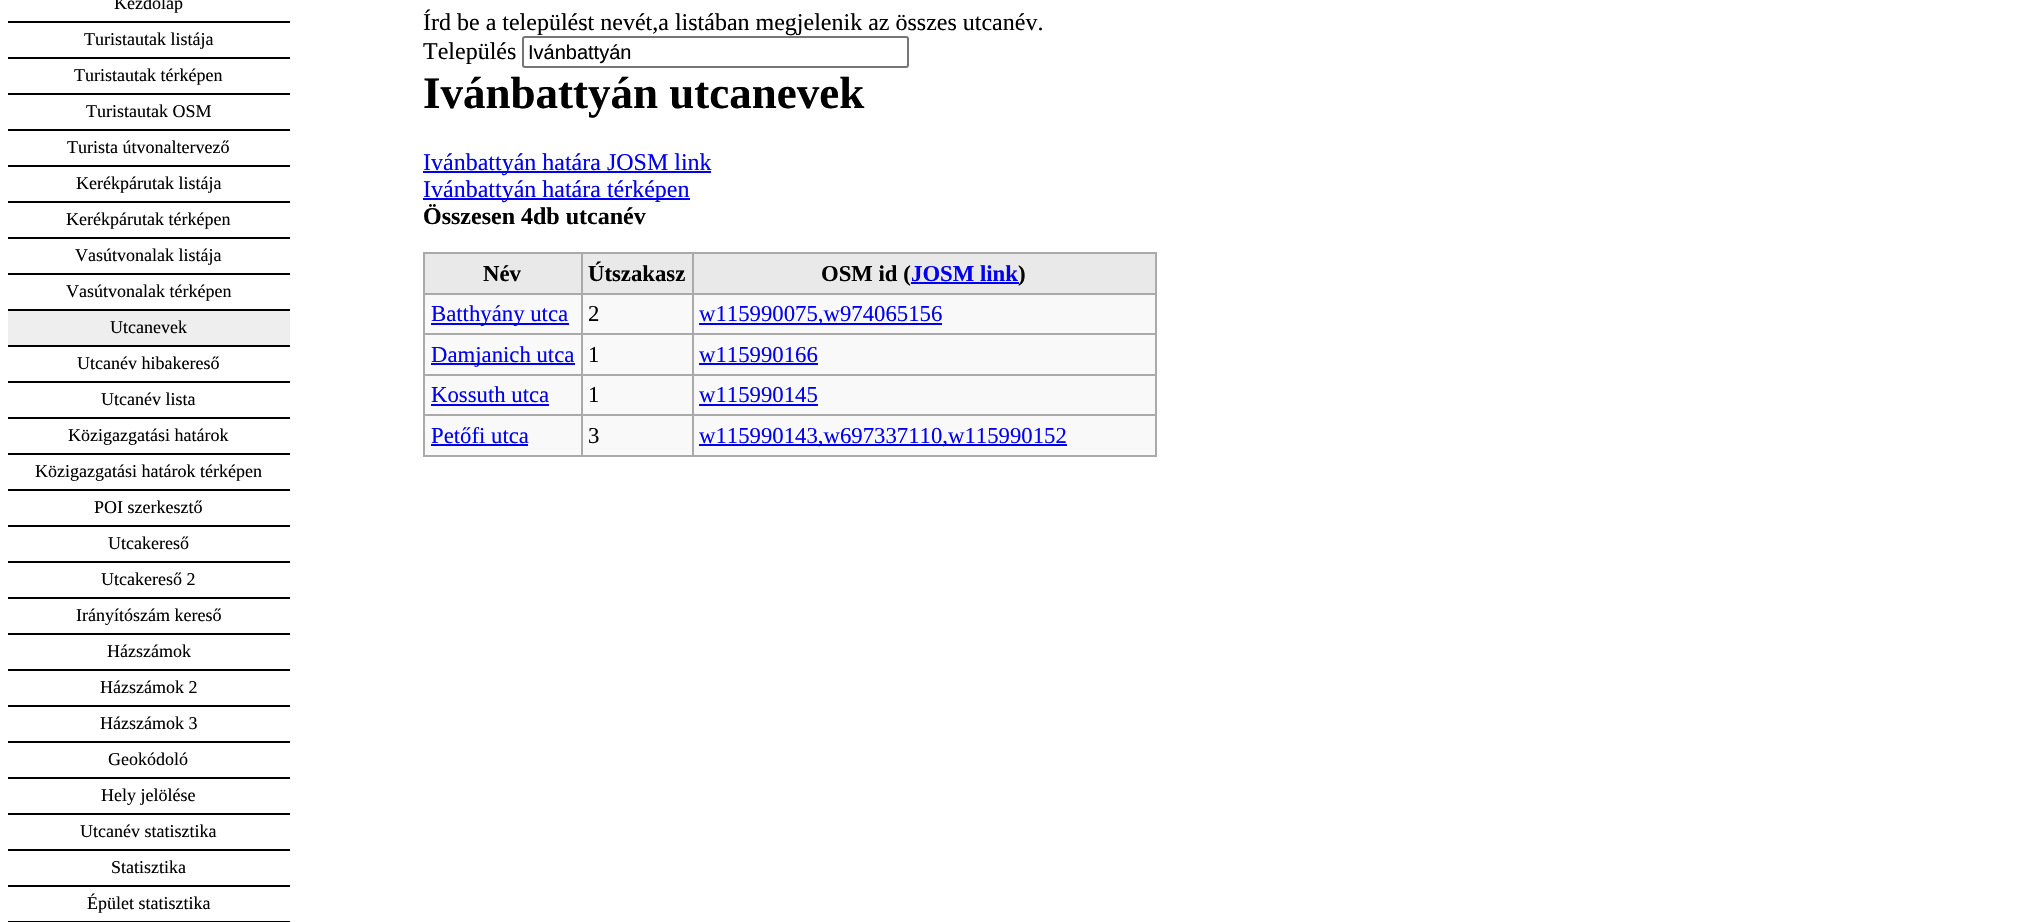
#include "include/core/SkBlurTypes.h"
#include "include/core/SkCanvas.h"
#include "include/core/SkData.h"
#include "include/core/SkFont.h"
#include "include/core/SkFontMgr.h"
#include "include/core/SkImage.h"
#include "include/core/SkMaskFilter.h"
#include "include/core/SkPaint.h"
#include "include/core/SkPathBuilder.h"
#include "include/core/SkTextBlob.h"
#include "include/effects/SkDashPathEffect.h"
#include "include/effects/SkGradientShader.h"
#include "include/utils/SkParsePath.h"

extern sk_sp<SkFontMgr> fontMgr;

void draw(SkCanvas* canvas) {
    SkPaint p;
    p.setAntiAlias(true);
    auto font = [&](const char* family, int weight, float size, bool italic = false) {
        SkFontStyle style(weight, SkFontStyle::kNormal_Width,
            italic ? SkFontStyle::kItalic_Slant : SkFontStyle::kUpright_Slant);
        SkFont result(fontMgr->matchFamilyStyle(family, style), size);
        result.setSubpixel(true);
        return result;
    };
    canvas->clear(0xFFFFFFFF);
    p.setColor(0xFF000000);
    canvas->drawRect(SkRect::MakeLTRB(8, 21, 290, 23), p);
    auto font1 = font("Liberation Serif", 400, 18);
    canvas->drawString("Kezdőlap", 114, 9, font1, p);
    canvas->drawRect(SkRect::MakeLTRB(8, 57, 290, 59), p);
    canvas->drawString("Turistautak listája", 84, 45, font1, p);
    canvas->drawRect(SkRect::MakeLTRB(8, 93, 290, 95), p);
    canvas->drawString("Turistautak térképen", 74, 81, font1, p);
    canvas->drawRect(SkRect::MakeLTRB(8, 129, 290, 131), p);
    canvas->drawString("Turistautak OSM", 86, 117, font1, p);
    canvas->drawRect(SkRect::MakeLTRB(8, 165, 290, 167), p);
    canvas->drawString("Turista útvonaltervező", 67, 153, font1, p);
    canvas->drawRect(SkRect::MakeLTRB(8, 201, 290, 203), p);
    canvas->drawString("Kerékpárutak listája", 76, 189, font1, p);
    canvas->drawRect(SkRect::MakeLTRB(8, 237, 290, 239), p);
    canvas->drawString("Kerékpárutak térképen", 66, 225, font1, p);
    canvas->drawRect(SkRect::MakeLTRB(8, 273, 290, 275), p);
    canvas->drawString("Vasútvonalak listája", 75, 261, font1, p);
    canvas->drawRect(SkRect::MakeLTRB(8, 309, 290, 311), p);
    canvas->drawString("Vasútvonalak térképen", 66, 297, font1, p);
    p.setColor(0xFFEEEEEE);
    canvas->drawRect(SkRect::MakeLTRB(8, 311, 290, 345), p);
    p.setColor(0xFF000000);
    canvas->drawRect(SkRect::MakeLTRB(8, 345, 290, 347), p);
    canvas->drawString("Utcanevek", 110, 333, font1, p);
    canvas->drawRect(SkRect::MakeLTRB(8, 381, 290, 383), p);
    canvas->drawString("Utcanév hibakereső", 77, 369, font1, p);
    canvas->drawRect(SkRect::MakeLTRB(8, 417, 290, 419), p);
    canvas->drawString("Utcanév lista", 101, 405, font1, p);
    canvas->drawRect(SkRect::MakeLTRB(8, 453, 290, 455), p);
    canvas->drawString("Közigazgatási határok", 68, 441, font1, p);
    canvas->drawRect(SkRect::MakeLTRB(8, 489, 290, 491), p);
    canvas->drawString("Közigazgatási határok térképen", 35, 477, font1, p);
    canvas->drawRect(SkRect::MakeLTRB(8, 525, 290, 527), p);
    canvas->drawString("POI szerkesztő", 94, 513, font1, p);
    canvas->drawRect(SkRect::MakeLTRB(8, 561, 290, 563), p);
    canvas->drawString("Utcakereső", 108, 549, font1, p);
    canvas->drawRect(SkRect::MakeLTRB(8, 597, 290, 599), p);
    canvas->drawString("Utcakereső 2", 101, 585, font1, p);
    canvas->drawRect(SkRect::MakeLTRB(8, 633, 290, 635), p);
    canvas->drawString("Irányítószám kereső", 76, 621, font1, p);
    canvas->drawRect(SkRect::MakeLTRB(8, 669, 290, 671), p);
    canvas->drawString("Házszámok", 107, 657, font1, p);
    canvas->drawRect(SkRect::MakeLTRB(8, 705, 290, 707), p);
    canvas->drawString("Házszámok 2", 100, 693, font1, p);
    canvas->drawRect(SkRect::MakeLTRB(8, 741, 290, 743), p);
    canvas->drawString("Házszámok 3", 100, 729, font1, p);
    canvas->drawRect(SkRect::MakeLTRB(8, 777, 290, 779), p);
    canvas->drawString("Geokódoló", 108, 765, font1, p);
    canvas->drawRect(SkRect::MakeLTRB(8, 813, 290, 815), p);
    canvas->drawString("Hely jelölése", 101, 801, font1, p);
    canvas->drawRect(SkRect::MakeLTRB(8, 849, 290, 851), p);
    canvas->drawString("Utcanév statisztika", 80, 837, font1, p);
    canvas->drawRect(SkRect::MakeLTRB(8, 885, 290, 887), p);
    canvas->drawString("Statisztika", 111, 873, font1, p);
    canvas->drawRect(SkRect::MakeLTRB(8, 921, 290, 922), p);
    canvas->drawString("Épület statisztika", 87, 909, font1, p);
    auto font2 = font("Liberation Serif", 400, 24);
    canvas->drawString("Írd be a települést nevét,a listában megjelenik az összes utcanév.", 423, 30, font2, p);
    canvas->drawString("Település", 423, 59, font2, p);
    p.setStyle(SkPaint::kStroke_Style);
    p.setStrokeWidth(2);
    p.setColor(0xFF767676);
    canvas->drawRoundRect(SkRect::MakeLTRB(523, 37, 908, 67), 2, 2, p);
    auto font3 = font("Liberation Sans", 400, 20);
    p.setStyle(SkPaint::kFill_Style);
    p.setColor(0xFF000000);
    canvas->drawString("Ivánbattyán", 528, 59, font3, p);
    auto font4 = font("Liberation Serif", 700, 45);
    canvas->drawString("Ivánbattyán utcanevek", 423, 108, font4, p);
    p.setColor(0xFF0000EE);
    canvas->drawRect(SkRect::MakeLTRB(423, 171, 711, 173), p);
    canvas->drawString("Ivánbattyán határa JOSM link", 423, 170, font2, p);
    canvas->drawRect(SkRect::MakeLTRB(423, 198, 690, 200), p);
    canvas->drawString("Ivánbattyán határa térképen", 423, 197, font2, p);
    auto font5 = font("Liberation Serif", 700, 24);
    p.setColor(0xFF000000);
    canvas->drawString("Összesen 4db utcanév", 423, 224, font5, p);
    {
        const struct { float l, t, r, b; SkColor color; } items[] = {
            {425, 295, 1155, 455, 0xFFF9F9F9},
            {423, 252, 1157, 254, 0xFFAAAAAA},
            {1155, 252, 1157, 456, 0xFFAAAAAA},
            {423, 455, 1157, 457, 0xFFAAAAAA},
            {423, 252, 425, 456, 0xFFAAAAAA},
            {425, 254, 1155, 293, 0xFFE9E9E9},
        };
        for (auto [l, t, r, b, color] : items) {
            p.setColor(color);
            canvas->drawRect(SkRect::MakeLTRB(l, t, r, b), p);
        }
    }
    auto font6 = font("Liberation Serif", 700, 22.75f);
    p.setColor(0xFF000000);
    canvas->drawString("Név", 483, 281, font6, p);
    {
        const struct { float l, t, r, b; SkColor color; } items[] = {
            {692, 293, 1157, 295, 0xFFAAAAAA},
            {692, 333, 1157, 335, 0xFFAAAAAA},
            {692, 374, 1157, 376, 0xFFAAAAAA},
            {692, 414, 1157, 416, 0xFFAAAAAA},
            {692, 414, 694, 456, 0xFFAAAAAA},
            {581, 414, 693, 416, 0xFFAAAAAA},
            {692, 374, 694, 416, 0xFFAAAAAA},
            {581, 374, 693, 376, 0xFFAAAAAA},
            {692, 333, 694, 375, 0xFFAAAAAA},
            {581, 333, 693, 335, 0xFFAAAAAA},
            {692, 293, 694, 335, 0xFFAAAAAA},
            {581, 293, 693, 295, 0xFFAAAAAA},
            {581, 414, 583, 456, 0xFFAAAAAA},
            {423, 414, 582, 416, 0xFFAAAAAA},
            {581, 374, 583, 416, 0xFFAAAAAA},
            {423, 374, 582, 376, 0xFFAAAAAA},
            {581, 333, 583, 375, 0xFFAAAAAA},
            {423, 333, 582, 335, 0xFFAAAAAA},
            {581, 293, 583, 335, 0xFFAAAAAA},
            {423, 293, 582, 295, 0xFFAAAAAA},
            {581, 252, 583, 294, 0xFFAAAAAA},
        };
        for (auto [l, t, r, b, color] : items) {
            p.setColor(color);
            canvas->drawRect(SkRect::MakeLTRB(l, t, r, b), p);
        }
    }
    p.setColor(0xFF000000);
    canvas->drawString("Útszakasz", 588, 281, font6, p);
    p.setColor(0xFFAAAAAA);
    canvas->drawRect(SkRect::MakeLTRB(692, 252, 694, 294), p);
    p.setColor(0xFF000000);
    canvas->drawString("OSM id (", 821, 281, font6, p);
    p.setColor(0xFF0000EE);
    canvas->drawString("JOSM link", 911, 281, font6, p);
    canvas->drawRect(SkRect::MakeLTRB(911, 282, 1019, 284), p);
    p.setColor(0xFF000000);
    canvas->drawString(")", 1018, 281, font6, p);
    p.setColor(0xFF0000EE);
    canvas->drawRect(SkRect::MakeLTRB(431, 323, 569, 325), p);
    auto font7 = font("Liberation Serif", 400, 22.75f);
    canvas->drawString("Batthyány utca", 431, 321, font7, p);
    p.setColor(0xFF000000);
    canvas->drawString("2", 588, 321, font7, p);
    p.setColor(0xFF0000EE);
    canvas->drawRect(SkRect::MakeLTRB(699, 323, 942, 325), p);
    canvas->drawString("w115990075,w974065156", 699, 321, font7, p);
    canvas->drawRect(SkRect::MakeLTRB(431, 363, 575, 365), p);
    canvas->drawString("Damjanich utca", 431, 362, font7, p);
    p.setColor(0xFF000000);
    canvas->drawString("1", 588, 362, font7, p);
    p.setColor(0xFF0000EE);
    canvas->drawString("w115990166", 699, 362, font7, p);
    canvas->drawRect(SkRect::MakeLTRB(699, 363, 818, 365), p);
    canvas->drawString("Kossuth utca", 431, 402, font7, p);
    canvas->drawRect(SkRect::MakeLTRB(431, 404, 549, 406), p);
    p.setColor(0xFF000000);
    canvas->drawString("1", 588, 402, font7, p);
    p.setColor(0xFF0000EE);
    canvas->drawString("w115990145", 699, 402, font7, p);
    canvas->drawRect(SkRect::MakeLTRB(699, 404, 818, 406), p);
    canvas->drawString("Petőfi utca", 431, 443, font7, p);
    canvas->drawRect(SkRect::MakeLTRB(431, 444, 528, 446), p);
    p.setColor(0xFF000000);
    canvas->drawString("3", 588, 443, font7, p);
    p.setColor(0xFF0000EE);
    canvas->drawRect(SkRect::MakeLTRB(699, 444, 1067, 446), p);
    canvas->drawString("w115990143,w697337110,w115990152", 699, 443, font7, p);
}
